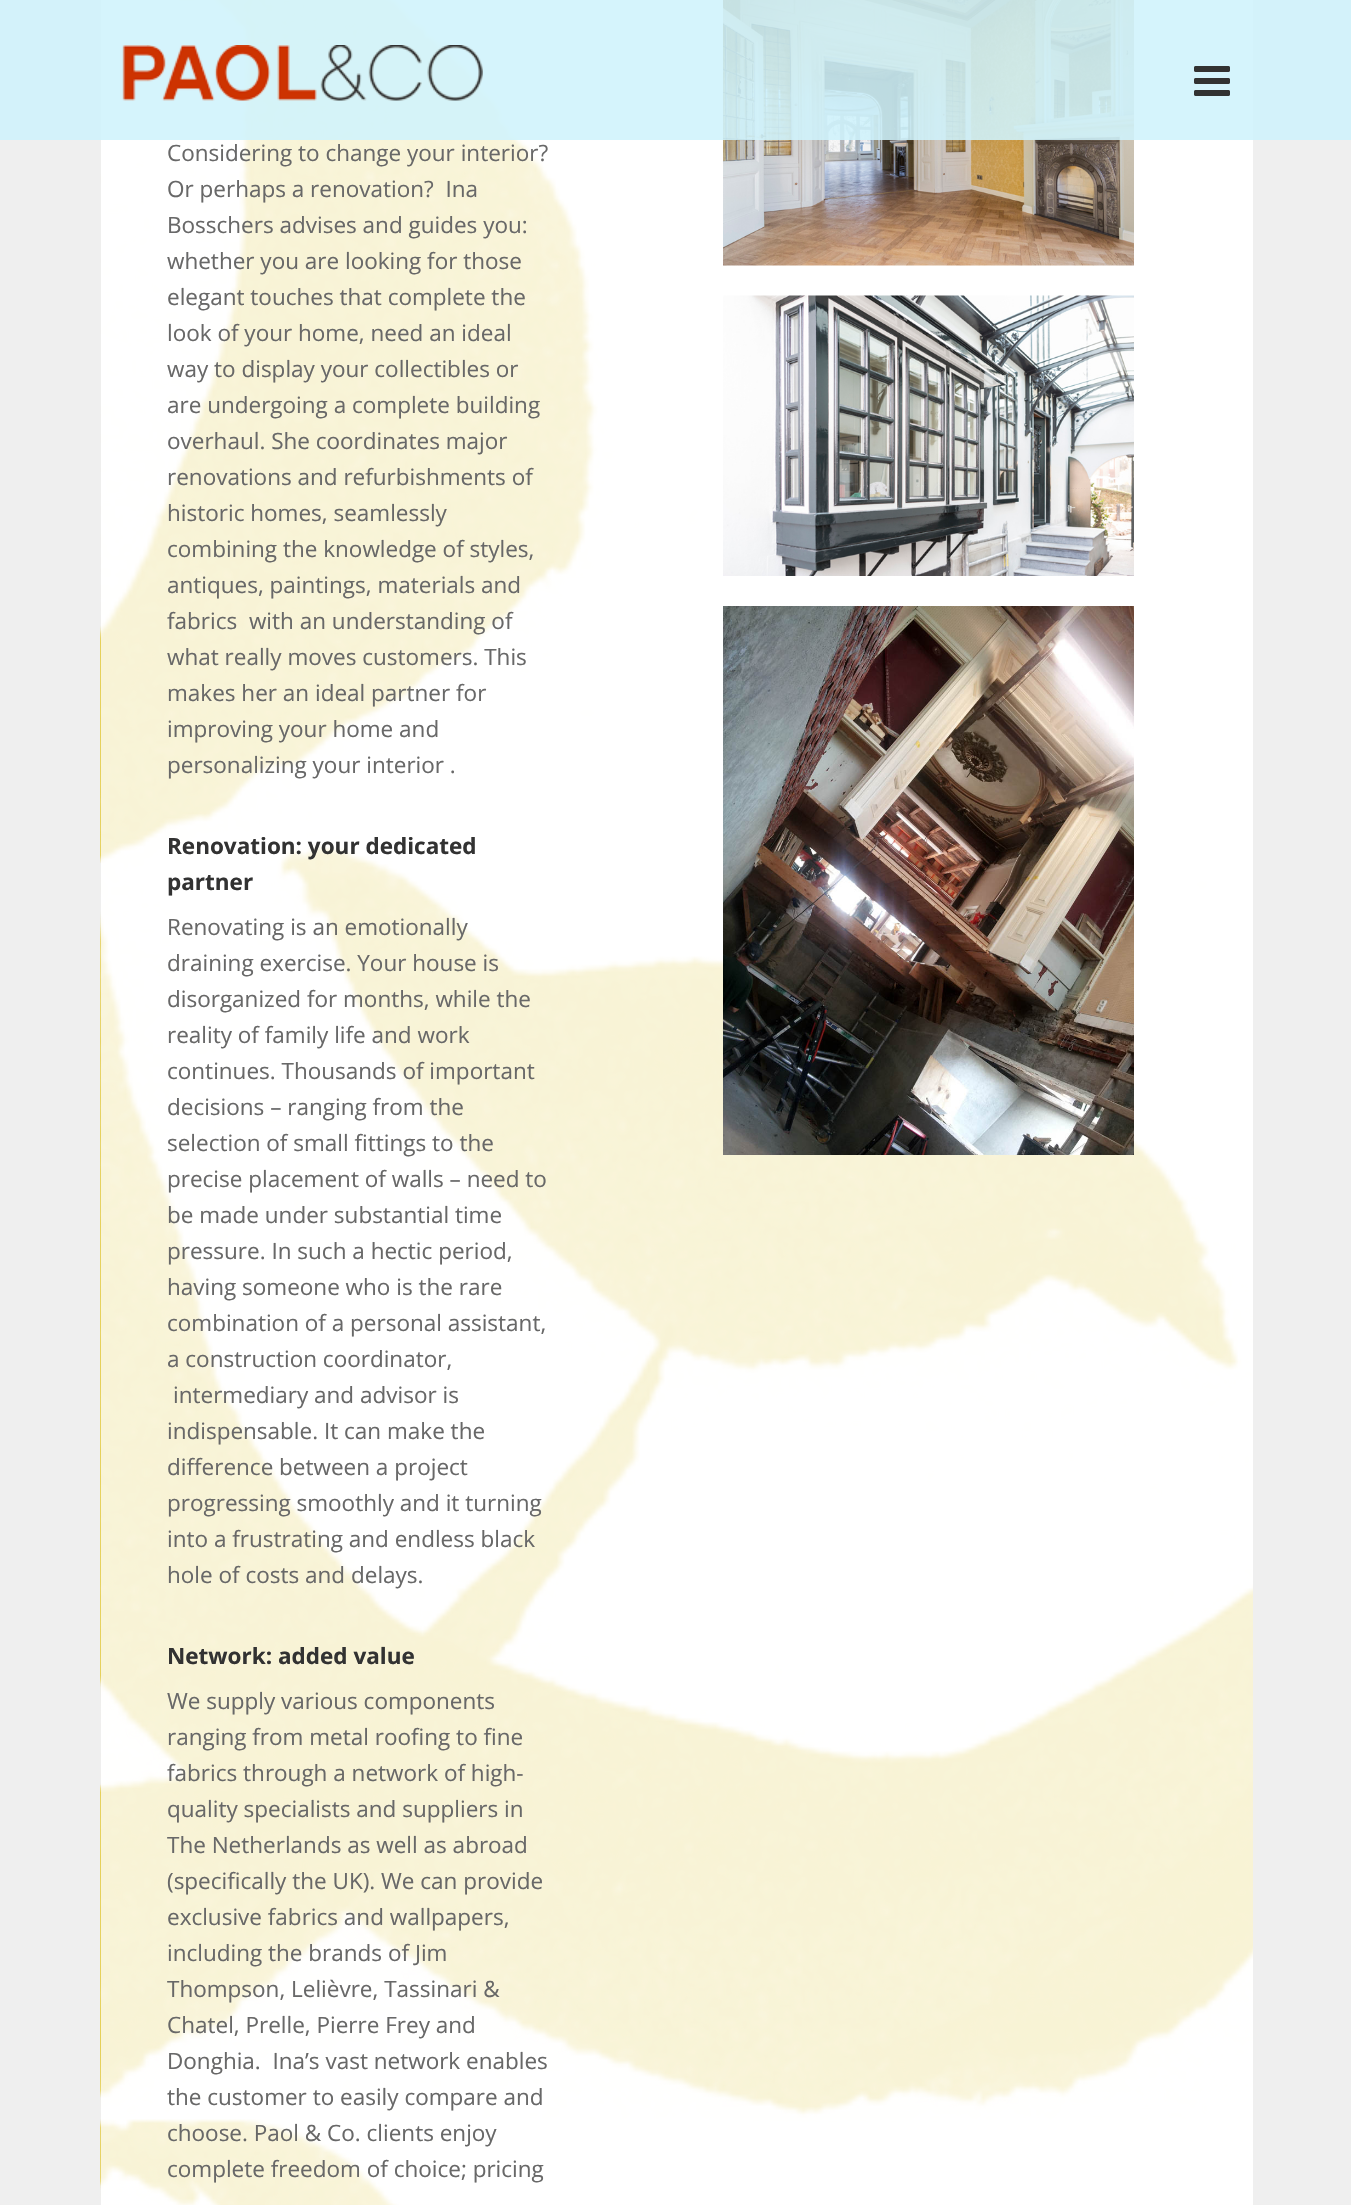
#include "include/core/SkBlurTypes.h"
#include "include/core/SkCanvas.h"
#include "include/core/SkData.h"
#include "include/core/SkFont.h"
#include "include/core/SkFontMgr.h"
#include "include/core/SkImage.h"
#include "include/core/SkMaskFilter.h"
#include "include/core/SkPaint.h"
#include "include/core/SkPathBuilder.h"
#include "include/core/SkTextBlob.h"
#include "include/effects/SkDashPathEffect.h"
#include "include/effects/SkGradientShader.h"
#include "include/utils/SkParsePath.h"

extern sk_sp<SkFontMgr> fontMgr;

void draw(SkCanvas* canvas) {
    SkPaint p;
    p.setAntiAlias(true);
    auto font = [&](const char* family, int weight, float size, bool italic = false) {
        SkFontStyle style(weight, SkFontStyle::kNormal_Width,
            italic ? SkFontStyle::kItalic_Slant : SkFontStyle::kUpright_Slant);
        SkFont result(fontMgr->matchFamilyStyle(family, style), size);
        result.setSubpixel(true);
        return result;
    };
    auto drawPhoto = [&](const char* path, float l, float t, float r, float b) {
        auto image = SkImages::DeferredFromEncodedData(SkData::MakeFromFileName(path));
        canvas->drawImageRect(image, SkRect::MakeLTRB(l, t, r, b), SkSamplingOptions());
    };
    canvas->clear(0xFFEFEFEF);
    p.setColor(0xFFFFFFFF);
    canvas->drawRect(SkRect::MakeLTRB(101, 0, 1253, 2205), p);
    drawPhoto("media/3.png", 100, 0, 1253, 2205);
    drawPhoto("media/4.png", 723, 0, 1134, 266);
    p.setColor(0xE0CFF3FC);
    canvas->drawRect(SkRect::MakeLTRB(0, 0, 1351, 140), p);
    drawPhoto("media/1.png", 122, 45, 483, 101);
    drawPhoto("media/2.png", 1194, 66, 1230, 96);
    auto font1 = font("Open Sans", 400, 22.5f);
    p.setColor(0xFF686868);
    {
        const struct { const char* s; float x, y; } items[] = {
            {"Considering to change your interior?", 167, 161},
            {"Or perhaps a renovation?  Ina", 167, 197},
            {"Bosschers advises and guides you:", 167, 233},
            {"whether you are looking for those", 167, 269},
            {"elegant touches that complete the", 167, 305},
            {"look of your home, need an ideal", 167, 341},
            {"way to display your collectibles or", 167, 377},
            {"are undergoing a complete building", 167, 413},
            {"overhaul. She coordinates major", 167, 449},
            {"renovations and refurbishments of", 167, 485},
            {"historic homes, seamlessly", 167, 521},
            {"combining the knowledge of styles,", 167, 557},
            {"antiques, paintings, materials and", 167, 593},
            {"fabrics  with an understanding of", 167, 629},
            {"what really moves customers. This", 167, 665},
            {"makes her an ideal partner for", 167, 701},
            {"improving your home and", 167, 737},
            {"personalizing your interior .", 167, 773},
        };
        for (auto [s, x, y] : items) {
            canvas->drawString(s, x, y, font1, p);
        }
    }
    auto font2 = font("Open Sans", 700, 22.5f);
    p.setColor(0xFF323232);
    canvas->drawString("Renovation: your dedicated", 167, 854, font2, p);
    canvas->drawString("partner", 167, 890, font2, p);
    p.setColor(0xFF686868);
    {
        const struct { const char* s; float x, y; } items[] = {
            {"Renovating is an emotionally", 167, 935},
            {"draining exercise. Your house is", 167, 971},
            {"disorganized for months, while the", 167, 1007},
            {"reality of family life and work", 167, 1043},
            {"continues. Thousands of important", 167, 1079},
            {"decisions – ranging from the", 167, 1115},
            {"selection of small fittings to the", 167, 1151},
            {"precise placement of walls – need to", 167, 1187},
            {"be made under substantial time", 167, 1223},
            {"pressure. In such a hectic period,", 167, 1259},
            {"having someone who is the rare", 167, 1295},
            {"combination of a personal assistant,", 167, 1331},
            {"a construction coordinator,", 167, 1367},
            {"intermediary and advisor is", 173, 1403},
            {"indispensable. It can make the", 167, 1439},
            {"difference between a project", 167, 1475},
            {"progressing smoothly and it turning", 167, 1511},
            {"into a frustrating and endless black", 167, 1547},
            {"hole of costs and delays.", 167, 1583},
        };
        for (auto [s, x, y] : items) {
            canvas->drawString(s, x, y, font1, p);
        }
    }
    p.setColor(0xFF323232);
    canvas->drawString("Network: added value", 167, 1664, font2, p);
    p.setColor(0xFF686868);
    {
        const struct { const char* s; float x, y; } items[] = {
            {"We supply various components", 167, 1709},
            {"ranging from metal roofing to fine", 167, 1745},
            {"fabrics through a network of high-", 167, 1781},
            {"quality specialists and suppliers in", 167, 1817},
            {"The Netherlands as well as abroad", 167, 1853},
            {"(specifically the UK). We can provide", 167, 1889},
            {"exclusive fabrics and wallpapers,", 167, 1925},
            {"including the brands of Jim", 167, 1961},
            {"Thompson, Lelièvre, Tassinari &", 167, 1997},
            {"Chatel, Prelle, Pierre Frey and", 167, 2033},
            {"Donghia.  Ina’s vast network enables", 167, 2069},
            {"the customer to easily compare and", 167, 2105},
            {"choose. Paol & Co. clients enjoy", 167, 2141},
            {"complete freedom of choice; pricing", 167, 2177},
        };
        for (auto [s, x, y] : items) {
            canvas->drawString(s, x, y, font1, p);
        }
    }
    drawPhoto("media/5.png", 723, 295, 1134, 576);
    drawPhoto("media/6.png", 723, 606, 1134, 1155);
}
